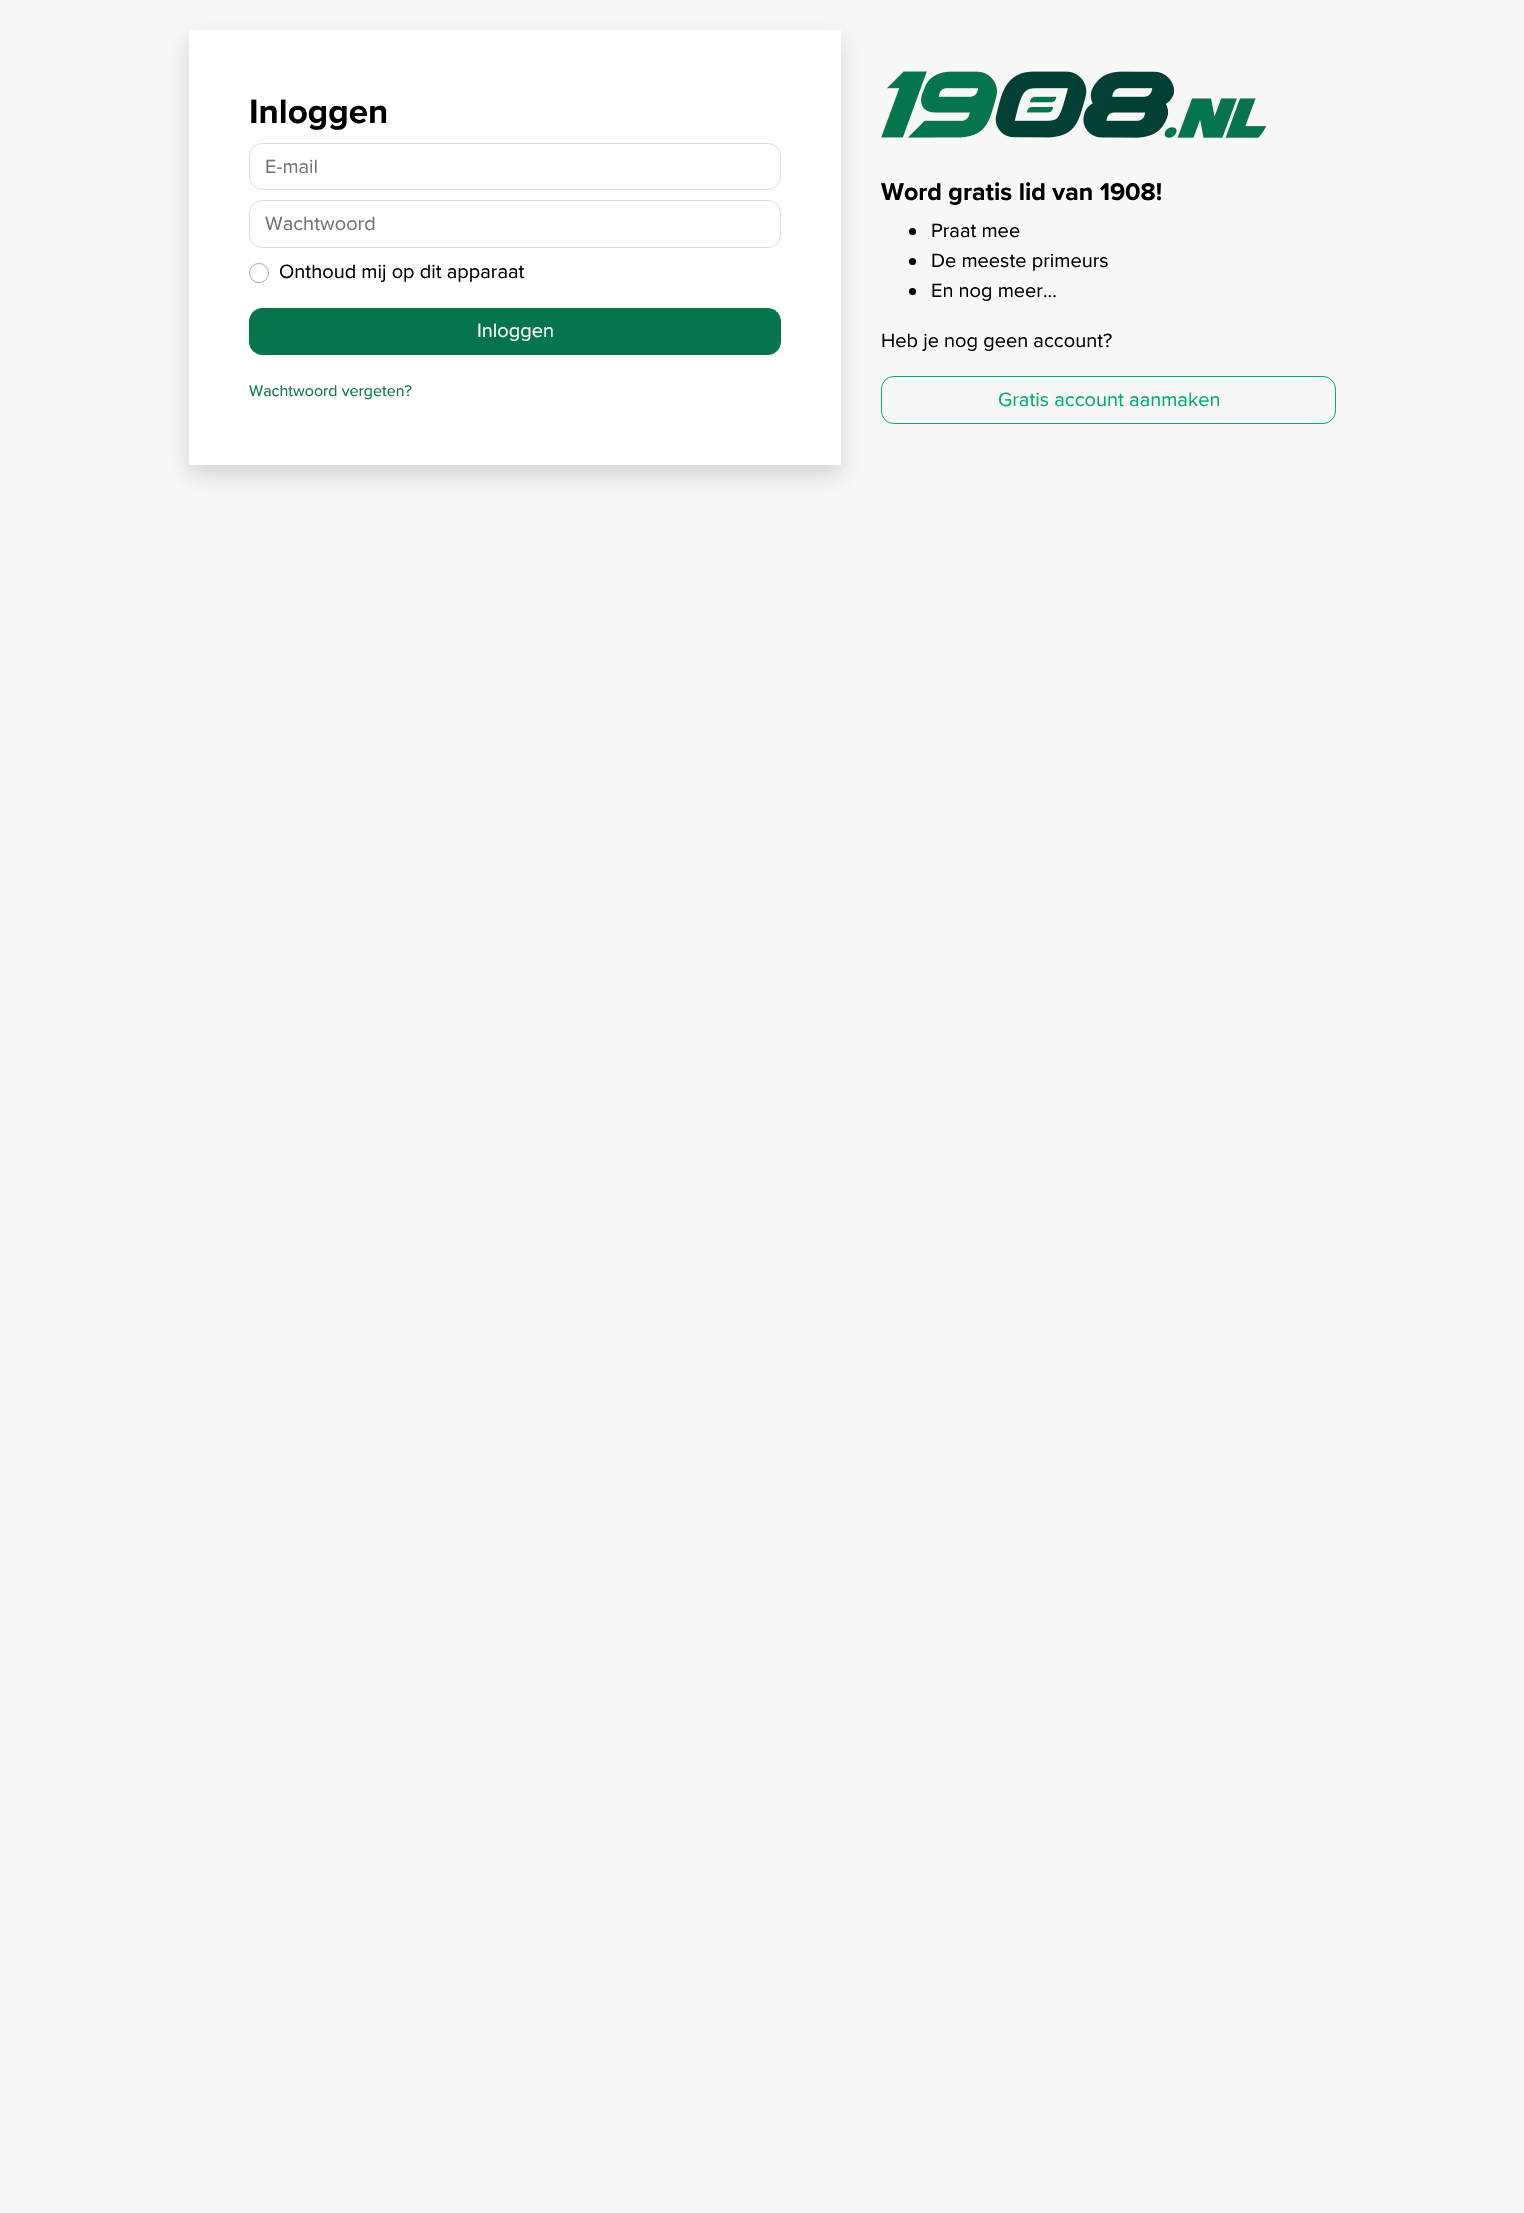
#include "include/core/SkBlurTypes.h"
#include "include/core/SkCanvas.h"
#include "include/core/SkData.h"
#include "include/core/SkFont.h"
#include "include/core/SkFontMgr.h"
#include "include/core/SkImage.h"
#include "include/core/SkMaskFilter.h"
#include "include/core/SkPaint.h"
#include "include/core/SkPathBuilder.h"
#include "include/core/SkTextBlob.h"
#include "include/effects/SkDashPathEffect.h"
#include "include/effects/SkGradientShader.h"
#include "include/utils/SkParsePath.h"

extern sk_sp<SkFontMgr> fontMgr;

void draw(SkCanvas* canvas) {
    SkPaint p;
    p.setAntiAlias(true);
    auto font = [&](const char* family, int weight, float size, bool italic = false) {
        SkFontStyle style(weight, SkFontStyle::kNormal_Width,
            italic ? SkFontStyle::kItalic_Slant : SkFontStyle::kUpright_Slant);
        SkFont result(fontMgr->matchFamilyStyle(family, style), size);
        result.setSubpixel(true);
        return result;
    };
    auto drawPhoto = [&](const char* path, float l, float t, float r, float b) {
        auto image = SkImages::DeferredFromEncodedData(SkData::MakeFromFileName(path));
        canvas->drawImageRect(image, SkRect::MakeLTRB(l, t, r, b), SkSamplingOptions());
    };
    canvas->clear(0xFFF8F8F8);
    p.setColor(0x26000000);
    p.setMaskFilter(SkMaskFilter::MakeBlur(kNormal_SkBlurStyle, 10));
    canvas->drawRect(SkRect::MakeLTRB(189, 40, 841, 475), p);
    p.setMaskFilter(nullptr);
    p.setColor(0xFFFFFFFF);
    canvas->drawRect(SkRect::MakeLTRB(189, 30, 841, 465), p);
    auto font1 = font("Proxima Nova", 700, 35);
    p.setColor(0xFF000000);
    canvas->drawString("Inloggen", 249, 123, font1, p);
    p.setStyle(SkPaint::kStroke_Style);
    p.setStrokeWidth(1);
    p.setColor(0xFFE0E0E0);
    canvas->drawRoundRect(SkRect::MakeLTRB(249.5f, 143.5f, 780.5f, 189.5f), 12.5f, 12.5f, p);
    auto font2 = font("Proxima Nova", 400, 20);
    p.setStyle(SkPaint::kFill_Style);
    p.setColor(0xFF737373);
    canvas->drawString("E-mail", 265, 173, font2, p);
    p.setStyle(SkPaint::kStroke_Style);
    p.setColor(0xFFE0E0E0);
    canvas->drawRoundRect(SkRect::MakeLTRB(249.5f, 200.5f, 780.5f, 247.5f), 12.5f, 12.5f, p);
    p.setStyle(SkPaint::kFill_Style);
    p.setColor(0xFF737373);
    canvas->drawString("Wachtwoord", 265, 230, font2, p);
    p.setStyle(SkPaint::kStroke_Style);
    p.setColor(0xFFA9A9A9);
    canvas->drawCircle(259, 273, 9.5f, p);
    p.setStyle(SkPaint::kFill_Style);
    p.setColor(0xFF000000);
    canvas->drawString("Onthoud mij op dit apparaat", 279, 278, font2, p);
    p.setColor(0xFF07754B);
    canvas->drawRoundRect(SkRect::MakeLTRB(249.5f, 308.5f, 780.5f, 354.5f), 12.5f, 12.5f, p);
    p.setStyle(SkPaint::kStroke_Style);
    canvas->drawRoundRect(SkRect::MakeLTRB(249.5f, 308.5f, 780.5f, 354.5f), 12.5f, 12.5f, p);
    p.setStyle(SkPaint::kFill_Style);
    p.setColor(0xFFFFFFFF);
    canvas->drawString("Inloggen", 477, 337, font2, p);
    auto font3 = font("Proxima Nova", 400, 16);
    p.setColor(0xFF07754B);
    canvas->drawString("Wachtwoord vergeten?", 249, 396, font3, p);
    drawPhoto("media/1.png", 881, 71, 1266, 138);
    auto font4 = font("Proxima Nova", 700, 25);
    p.setColor(0xFF000000);
    canvas->drawString("Word gratis lid van 1908!", 881, 200, font4, p);
    canvas->drawCircle(912.5f, 231.5f, 3.5f, p);
    canvas->drawString("Praat mee", 931, 237, font2, p);
    canvas->drawCircle(912.5f, 261.5f, 3.5f, p);
    canvas->drawString("De meeste primeurs", 931, 267, font2, p);
    canvas->drawCircle(912.5f, 291.5f, 3.5f, p);
    canvas->drawString("En nog meer...", 931, 297, font2, p);
    canvas->drawString("Heb je nog geen account?", 881, 347, font2, p);
    p.setStyle(SkPaint::kStroke_Style);
    p.setColor(0xFF00AD6B);
    canvas->drawRoundRect(SkRect::MakeLTRB(881.5f, 376.5f, 1335.5f, 423.5f), 12.5f, 12.5f, p);
    p.setStyle(SkPaint::kFill_Style);
    canvas->drawString("Gratis account aanmaken", 998, 406, font2, p);
}
